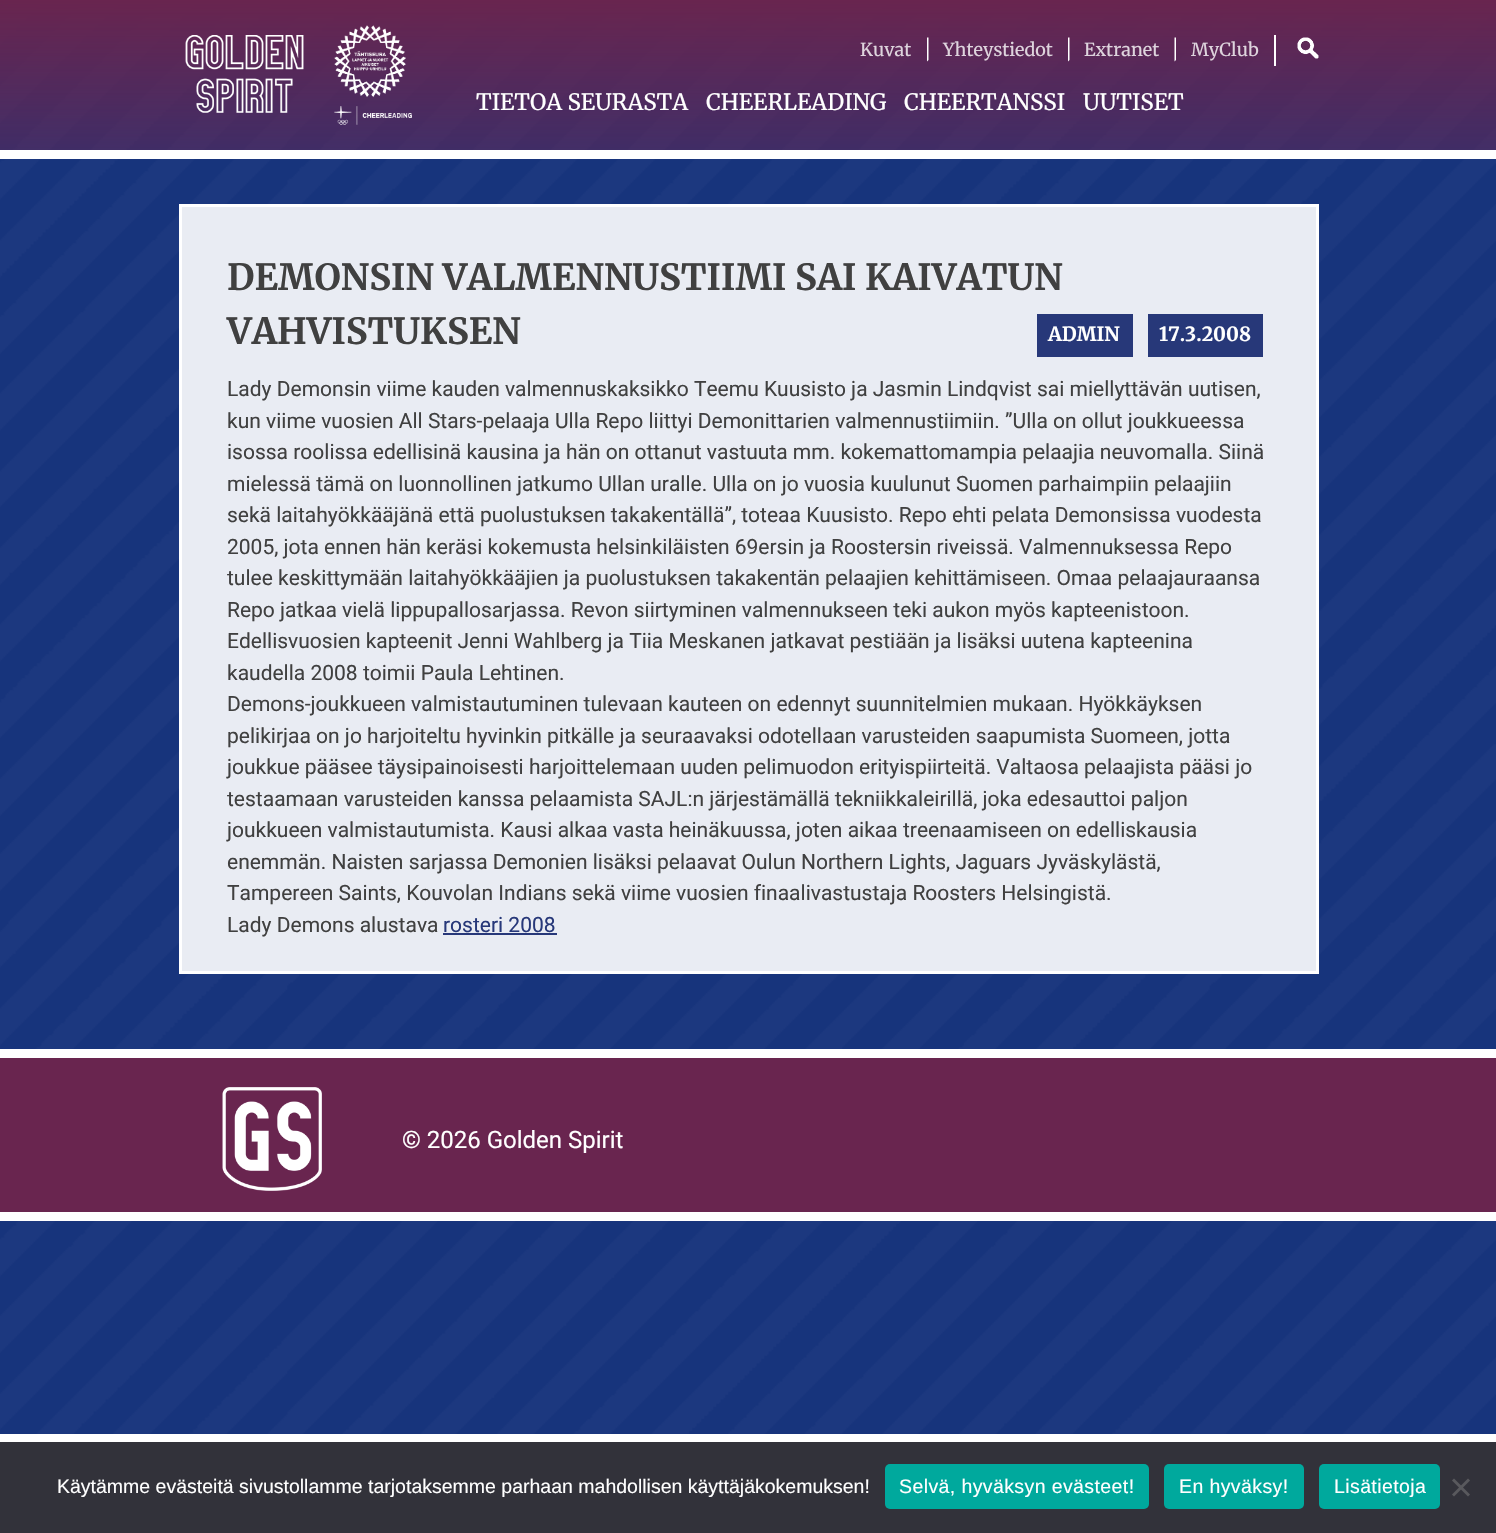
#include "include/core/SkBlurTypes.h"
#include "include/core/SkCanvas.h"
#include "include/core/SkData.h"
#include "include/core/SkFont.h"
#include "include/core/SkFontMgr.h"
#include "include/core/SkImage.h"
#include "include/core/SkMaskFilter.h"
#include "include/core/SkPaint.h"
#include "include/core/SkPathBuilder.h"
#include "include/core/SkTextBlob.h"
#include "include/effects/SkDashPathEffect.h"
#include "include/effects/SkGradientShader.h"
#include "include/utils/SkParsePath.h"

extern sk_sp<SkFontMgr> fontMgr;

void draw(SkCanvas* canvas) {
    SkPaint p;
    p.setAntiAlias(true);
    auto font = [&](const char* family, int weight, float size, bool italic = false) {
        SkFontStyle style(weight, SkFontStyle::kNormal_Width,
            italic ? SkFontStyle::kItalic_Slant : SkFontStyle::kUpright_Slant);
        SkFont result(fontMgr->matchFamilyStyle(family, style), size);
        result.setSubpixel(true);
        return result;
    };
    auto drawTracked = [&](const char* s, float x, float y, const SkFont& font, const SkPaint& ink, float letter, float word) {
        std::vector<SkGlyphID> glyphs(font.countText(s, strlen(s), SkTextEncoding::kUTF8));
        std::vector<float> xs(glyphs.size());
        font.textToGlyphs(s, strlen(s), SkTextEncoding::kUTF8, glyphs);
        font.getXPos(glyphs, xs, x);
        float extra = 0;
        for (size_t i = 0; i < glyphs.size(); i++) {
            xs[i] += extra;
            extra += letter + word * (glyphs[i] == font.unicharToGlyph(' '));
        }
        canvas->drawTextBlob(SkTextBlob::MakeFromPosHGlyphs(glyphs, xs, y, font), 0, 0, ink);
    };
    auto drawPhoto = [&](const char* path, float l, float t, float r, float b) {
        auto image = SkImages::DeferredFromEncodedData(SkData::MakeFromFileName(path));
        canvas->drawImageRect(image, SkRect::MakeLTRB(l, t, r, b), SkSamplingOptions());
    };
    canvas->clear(0xFFFFFFFF);
    drawPhoto("media/1.png", 0, 0, 1496, 1434);
    p.setColor(0xFFFFFFFF);
    canvas->drawRect(SkRect::MakeLTRB(0, 150, 1496, 159), p);
    drawPhoto("media/2.png", 185, 35, 304, 113);
    drawPhoto("media/3.png", 334, 25, 412, 125);
    auto font1 = font("Merriweather", 400, 18);
    p.setColor(0xFFDED4DD);
    canvas->drawString("Kuvat", 860, 56, font1, p);
    canvas->drawString("Yhteystiedot", 943, 56, font1, p);
    p.setColor(0xFFFFFFFF);
    canvas->drawPath(SkPathBuilder().moveTo(927, 61.5f).lineTo(927, 37.5f).lineTo(928.5f, 37.5f).lineTo(928.5f, 60).close().detach(), p);
    p.setColor(0xFFDED4DD);
    canvas->drawString("Extranet", 1084, 56, font1, p);
    p.setColor(0xFFFFFFFF);
    canvas->drawPath(SkPathBuilder().moveTo(1068, 61.5f).lineTo(1068, 37.5f).lineTo(1069.5f, 37.5f).lineTo(1069.5f, 60).close().detach(), p);
    p.setColor(0xFFDED4DD);
    canvas->drawString("MyClub", 1191, 56, font1, p);
    p.setColor(0xFFFFFFFF);
    canvas->drawPath(SkPathBuilder().moveTo(1174.5f, 61.5f).lineTo(1174.5f, 37.5f).lineTo(1176, 37.5f).lineTo(1176, 60).close().detach(), p);
    canvas->drawRect(SkRect::MakeLTRB(1274, 35, 1276, 66), p);
    drawPhoto("media/4.png", 1297, 37, 1319, 59);
    auto font2 = font("Merriweather", 400, 22.5f);
    {
        const struct { const char* s; float x, y; } items[] = {
            {"TIETOA SEURASTA", 476, 110},
            {"CHEERLEADING", 706, 110},
            {"CHEERTANSSI", 904, 110},
            {"UUTISET", 1083, 110},
        };
        for (auto [s, x, y] : items) {
            canvas->drawString(s, x, y, font2, p);
        }
    }
    p.setColor(0xE6FFFFFF);
    canvas->drawRect(SkRect::MakeLTRB(180.5f, 205.5f, 1317.5f, 972.5f), p);
    p.setStyle(SkPaint::kStroke_Style);
    p.setStrokeWidth(3);
    p.setColor(0xFFFFFFFF);
    canvas->drawRect(SkRect::MakeLTRB(180.5f, 205.5f, 1317.5f, 972.5f), p);
    auto font3 = font("Merriweather", 700, 36);
    p.setStyle(SkPaint::kFill_Style);
    p.setColor(0xFF404040);
    canvas->drawString("DEMONSIN VALMENNUSTIIMI SAI KAIVATUN", 227, 290, font3, p);
    canvas->drawString("VAHVISTUKSEN", 227, 344, font3, p);
    p.setColor(0xFF273879);
    canvas->drawRect(SkRect::MakeLTRB(1037, 314, 1133, 357), p);
    auto font4 = font("Merriweather", 700, 19.5f);
    p.setColor(0xFFFFFFFF);
    canvas->drawString("ADMIN", 1048, 341, font4, p);
    p.setColor(0xFF273879);
    canvas->drawRect(SkRect::MakeLTRB(1148, 314, 1263, 357), p);
    p.setColor(0xFFFFFFFF);
    canvas->drawString("17.3.2008", 1159, 341, font4, p);
    auto font5 = font("Roboto", 400, 21);
    p.setColor(0xFF404040);
    {
        const struct { const char* s; float x, y; } items[] = {
            {"Lady Demonsin viime kauden valmennuskaksikko Teemu Kuusisto ja Jasmin Lindqvist sai miellyttävän uutisen,", 227, 396},
            {"kun viime vuosien All Stars-pelaaja Ulla Repo liittyi Demonittarien valmennustiimiin. ”Ulla on ollut joukkueessa", 227, 428},
            {"isossa roolissa edellisinä kausina ja hän on ottanut vastuuta mm. kokemattomampia pelaajia neuvomalla. Siinä", 227, 459},
            {"mielessä tämä on luonnollinen jatkumo Ullan uralle. Ulla on jo vuosia kuulunut Suomen parhaimpiin pelaajiin", 227, 491},
            {"sekä laitahyökkääjänä että puolustuksen takakentällä”, toteaa Kuusisto. Repo ehti pelata Demonsissa vuodesta", 227, 522},
            {"2005, jota ennen hän keräsi kokemusta helsinkiläisten 69ersin ja Roostersin riveissä. Valmennuksessa Repo", 227, 554},
            {"tulee keskittymään laitahyökkääjien ja puolustuksen takakentän pelaajien kehittämiseen. Omaa pelaajauraansa", 227, 585},
            {"Repo jatkaa vielä lippupallosarjassa. Revon siirtyminen valmennukseen teki aukon myös kapteenistoon.", 227, 617},
            {"Edellisvuosien kapteenit Jenni Wahlberg ja Tiia Meskanen jatkavat pestiään ja lisäksi uutena kapteenina", 227, 648},
            {"kaudella 2008 toimii Paula Lehtinen.", 227, 680},
            {"Demons-joukkueen valmistautuminen tulevaan kauteen on edennyt suunnitelmien mukaan. Hyökkäyksen", 227, 711},
            {"pelikirjaa on jo harjoiteltu hyvinkin pitkälle ja seuraavaksi odotellaan varusteiden saapumista Suomeen, jotta", 227, 743},
            {"joukkue pääsee täysipainoisesti harjoittelemaan uuden pelimuodon erityispiirteitä. Valtaosa pelaajista pääsi jo", 227, 774},
            {"testaamaan varusteiden kanssa pelaamista SAJL:n järjestämällä tekniikkaleirillä, joka edesauttoi paljon", 227, 806},
            {"joukkueen valmistautumista. Kausi alkaa vasta heinäkuussa, joten aikaa treenaamiseen on edelliskausia", 227, 837},
            {"enemmän. Naisten sarjassa Demonien lisäksi pelaavat Oulun Northern Lights, Jaguars Jyväskylästä,", 227, 869},
            {"Tampereen Saints, Kouvolan Indians sekä viime vuosien finaalivastustaja Roosters Helsingistä.", 227, 900},
            {"Lady Demons alustava", 227, 932},
        };
        for (auto [s, x, y] : items) {
            canvas->drawString(s, x, y, font5, p);
        }
    }
    p.setColor(0xFF273879);
    canvas->drawString("rosteri 2008", 443, 932, font5, p);
    {
        const struct { float l, t, r, b; SkColor color; } items[] = {
            {443, 933, 557, 935, 0xFF273879},
            {0, 1058, 1496, 1212, 0xFF69254F},
            {0, 1049, 1496, 1058, 0xFFFFFFFF},
            {0, 1212, 1496, 1221, 0xFFFFFFFF},
        };
        for (auto [l, t, r, b, color] : items) {
            p.setColor(color);
            canvas->drawRect(SkRect::MakeLTRB(l, t, r, b), p);
        }
    }
    drawPhoto("media/5.png", 222, 1087, 322, 1191);
    auto font6 = font("Roboto", 400, 24);
    canvas->drawString("© 2026 Golden Spirit", 402, 1148, font6, p);
    p.setColor(0xFF32323A);
    canvas->drawRect(SkRect::MakeLTRB(0, 1442, 1496, 1533), p);
    auto font7 = font("Liberation Sans", 400, 19.5f);
    p.setColor(0xFFFFFFFF);
    canvas->drawString("Käytämme evästeitä sivustollamme tarjotaksemme parhaan mahdollisen käyttäjäkokemuksen!", 57, 1493, font7, p);
    p.setColor(0xFF00A99D);
    canvas->drawRoundRect(SkRect::MakeLTRB(885, 1464, 1149, 1509), 5, 5, p);
    p.setColor(0xFFFFFFFF);
    drawTracked("Selvä, hyväksyn evästeet!", 899, 1493, font7, p, 0.4f, 0);
    p.setColor(0xFF00A99D);
    canvas->drawRoundRect(SkRect::MakeLTRB(1164, 1464, 1304, 1509), 5, 5, p);
    p.setColor(0xFFFFFFFF);
    drawTracked("En hyväksy!", 1179, 1493, font7, p, 0.4f, 0);
    p.setColor(0xFF00A99D);
    canvas->drawRoundRect(SkRect::MakeLTRB(1319, 1464, 1440, 1509), 5, 5, p);
    p.setColor(0xFFFFFFFF);
    drawTracked("Lisätietoja", 1334, 1493, font7, p, 0.4f, 0);
    p.setColor(0xFF59595D);
    canvas->drawPath(SkPathBuilder().moveTo(1468, 1478.5f).lineTo(1470, 1480.5f).lineTo(1454, 1496.5f).lineTo(1452, 1494.5f).close().detach(), p);
    canvas->drawPath(SkPathBuilder().moveTo(1452, 1480.5f).lineTo(1454, 1478.5f).lineTo(1470, 1494.5f).lineTo(1468, 1496.5f).close().detach(), p);
}
